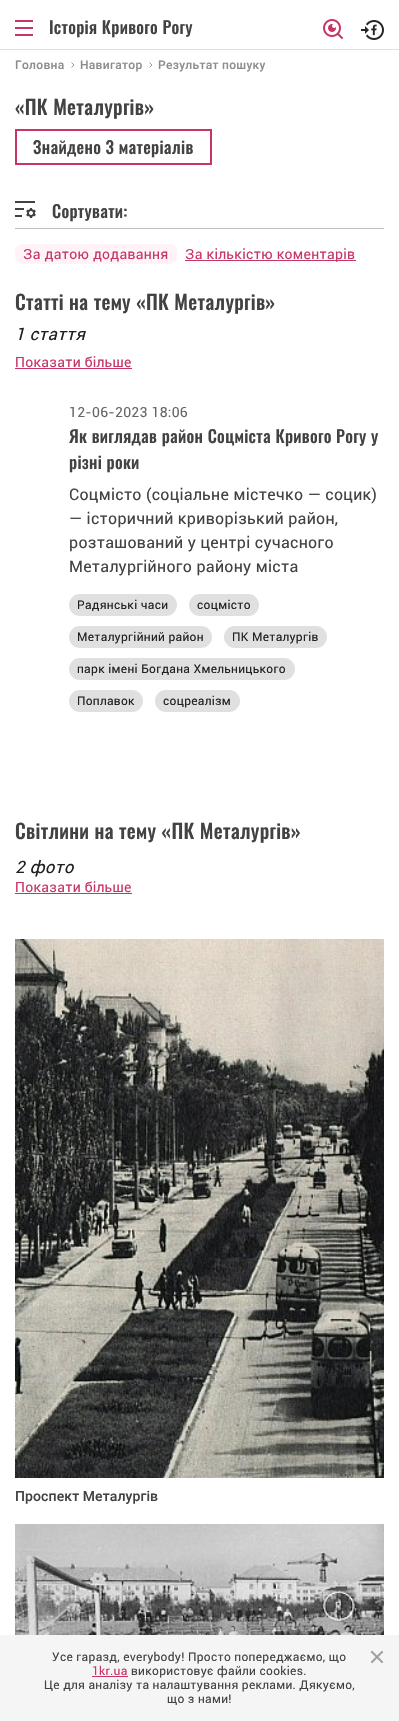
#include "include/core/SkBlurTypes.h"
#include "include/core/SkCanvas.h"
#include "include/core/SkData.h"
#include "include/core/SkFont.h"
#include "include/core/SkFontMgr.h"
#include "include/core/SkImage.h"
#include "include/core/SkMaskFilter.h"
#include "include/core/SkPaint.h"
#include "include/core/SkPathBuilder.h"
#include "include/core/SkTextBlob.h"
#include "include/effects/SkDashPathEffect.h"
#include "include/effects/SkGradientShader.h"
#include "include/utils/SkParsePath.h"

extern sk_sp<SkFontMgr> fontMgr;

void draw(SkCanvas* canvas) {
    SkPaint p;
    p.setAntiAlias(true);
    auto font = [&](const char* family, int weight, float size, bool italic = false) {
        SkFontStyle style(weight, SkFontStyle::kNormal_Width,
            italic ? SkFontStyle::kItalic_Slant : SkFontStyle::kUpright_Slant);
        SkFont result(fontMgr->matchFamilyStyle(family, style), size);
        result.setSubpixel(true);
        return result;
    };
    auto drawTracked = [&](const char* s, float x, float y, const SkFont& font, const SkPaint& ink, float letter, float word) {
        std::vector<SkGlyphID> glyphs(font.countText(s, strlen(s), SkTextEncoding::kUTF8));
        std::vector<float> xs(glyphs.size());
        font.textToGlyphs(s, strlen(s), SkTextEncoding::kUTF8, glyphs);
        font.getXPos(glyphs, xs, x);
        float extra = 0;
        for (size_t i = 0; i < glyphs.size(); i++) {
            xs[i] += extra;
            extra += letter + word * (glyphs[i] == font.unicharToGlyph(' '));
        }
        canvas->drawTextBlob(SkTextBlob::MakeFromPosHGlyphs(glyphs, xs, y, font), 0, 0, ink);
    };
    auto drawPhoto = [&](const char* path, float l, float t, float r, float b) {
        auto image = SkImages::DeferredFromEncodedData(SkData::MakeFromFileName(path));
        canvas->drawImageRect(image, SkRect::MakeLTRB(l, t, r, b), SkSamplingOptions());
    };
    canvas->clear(0xFFFFFFFF);
    p.setColor(0xFFE0E0E0);
    canvas->drawRect(SkRect::MakeLTRB(0, 49, 399, 50), p);
    drawPhoto("media/1.png", 15, 20, 33, 36);
    auto font1 = font("Oswald", 500, 17);
    p.setColor(0xFF424242);
    drawTracked("Історія Кривого Рогу", 49, 34, font1, p, 0.3f, 0);
    drawPhoto("media/2.png", 323, 19, 344, 40);
    drawPhoto("media/3.png", 361, 20, 384, 40);
    auto font2 = font("Roboto", 500, 12);
    p.setColor(0xFF8C8C8C);
    drawTracked("Головна", 15, 69, font2, p, 0.3f, 0);
    p.setStyle(SkPaint::kStroke_Style);
    p.setStrokeWidth(0.9f);
    canvas->drawPath(SkPathBuilder().moveTo(71.5f, 62.5f).lineTo(74, 65).lineTo(71.5f, 67.5f).detach(), p);
    p.setStyle(SkPaint::kFill_Style);
    drawTracked("Навигатор", 80, 69, font2, p, 0.3f, 0);
    p.setStyle(SkPaint::kStroke_Style);
    canvas->drawPath(SkPathBuilder().moveTo(149.5f, 62.5f).lineTo(152, 65).lineTo(149.5f, 67.5f).detach(), p);
    p.setStyle(SkPaint::kFill_Style);
    drawTracked("Результат пошуку", 158, 69, font2, p, 0.3f, 0);
    auto font3 = font("Oswald", 500, 20);
    p.setColor(0xFF424242);
    drawTracked("«ПК Металургів»", 15, 115, font3, p, 0.3f, 0);
    p.setStyle(SkPaint::kStroke_Style);
    p.setStrokeWidth(2);
    p.setColor(0xFFC73567);
    canvas->drawRect(SkRect::MakeLTRB(16, 130, 211, 164), p);
    p.setStyle(SkPaint::kFill_Style);
    p.setColor(0xFF424242);
    drawTracked("Знайдено 3 матеріалів", 33, 154, font1, p, 0.3f, 0);
    p.setColor(0xFFBDBDBD);
    canvas->drawRect(SkRect::MakeLTRB(15, 228, 384, 229), p);
    drawPhoto("media/4.png", 15, 201, 36, 218);
    p.setColor(0xFF424242);
    drawTracked("Сортувати:", 52, 218, font1, p, 0.3f, 0);
    p.setColor(0xFFFFF3F8);
    canvas->drawRoundRect(SkRect::MakeLTRB(15, 244, 177, 264), 8, 8, p);
    auto font4 = font("Roboto", 400, 14);
    p.setColor(0xFFC73567);
    drawTracked("За датою додавання", 23, 259, font4, p, 0.3f, 0);
    canvas->drawRect(SkRect::MakeLTRB(185, 260, 356, 261), p);
    drawTracked("За кількістю коментарів", 185, 259, font4, p, 0.3f, 0);
    p.setColor(0xFF424242);
    drawTracked("Статті на тему «ПК Металургів»", 15, 310, font3, p, 0.3f, 0);
    auto font5 = font("Roboto", 400, 17, true);
    p.setColor(0xFF212121);
    drawTracked("1 стаття", 15, 340, font5, p, 0.3f, 0);
    p.setColor(0xFFC73567);
    drawTracked("Показати більше", 15, 367, font4, p, 0.3f, 0);
    canvas->drawRect(SkRect::MakeLTRB(15, 368, 132, 369), p);
    p.setColor(0xFF666666);
    drawTracked("12-06-2023 18:06", 69, 417, font4, p, 0.3f, 0);
    p.setColor(0xFF424242);
    drawTracked("Як виглядав район Соцміста Кривого Рогу у", 69, 443, font1, p, 0.3f, 0);
    drawTracked("різні роки", 69, 469, font1, p, 0.3f, 0);
    auto font6 = font("Roboto", 400, 16);
    {
        const struct { const char* s; float x, y; } items[] = {
            {"Соцмісто (соціальне містечко — социк)", 69, 500},
            {"— історичний криворізький район,", 69, 524},
            {"розташований у центрі сучасного", 69, 548},
            {"Металургійного району міста", 69, 572},
        };
        for (auto [s, x, y] : items) {
            drawTracked(s, x, y, font6, p, 0.3f, 0);
        }
    }
    p.setColor(0xFFE0E0E0);
    canvas->drawRoundRect(SkRect::MakeLTRB(69, 594, 177, 616), 11, 11, p);
    auto font7 = font("Roboto", 400, 12);
    p.setColor(0xFF212121);
    drawTracked("Радянські часи", 77, 609, font7, p, 0.3f, 0);
    p.setColor(0xFFE0E0E0);
    canvas->drawRoundRect(SkRect::MakeLTRB(189, 594, 259, 616), 11, 11, p);
    p.setColor(0xFF212121);
    drawTracked("соцмісто", 197, 609, font7, p, 0.3f, 0);
    p.setColor(0xFFE0E0E0);
    canvas->drawRoundRect(SkRect::MakeLTRB(69, 626, 212, 648), 11, 11, p);
    p.setColor(0xFF212121);
    drawTracked("Металургійний район", 77, 641, font7, p, 0.3f, 0);
    p.setColor(0xFFE0E0E0);
    canvas->drawRoundRect(SkRect::MakeLTRB(224, 626, 327, 648), 11, 11, p);
    p.setColor(0xFF212121);
    drawTracked("ПК Металургів", 232, 641, font7, p, 0.3f, 0);
    p.setColor(0xFFE0E0E0);
    canvas->drawRoundRect(SkRect::MakeLTRB(69, 658, 295, 680), 11, 11, p);
    p.setColor(0xFF212121);
    drawTracked("парк імені Богдана Хмельницького", 77, 673, font7, p, 0.3f, 0);
    p.setColor(0xFFE0E0E0);
    canvas->drawRoundRect(SkRect::MakeLTRB(69, 690, 143, 712), 11, 11, p);
    p.setColor(0xFF212121);
    drawTracked("Поплавок", 77, 705, font7, p, 0.3f, 0);
    p.setColor(0xFFE0E0E0);
    canvas->drawRoundRect(SkRect::MakeLTRB(155, 690, 240, 712), 11, 11, p);
    p.setColor(0xFF212121);
    drawTracked("соцреалізм", 163, 705, font7, p, 0.3f, 0);
    p.setColor(0xFF424242);
    drawTracked("Світлини на тему «ПК Металургів»", 15, 839, font3, p, 0.3f, 0);
    p.setColor(0xFF212121);
    drawTracked("2 фото", 15, 873, font5, p, 0.3f, 0);
    p.setColor(0xFFC73567);
    drawTracked("Показати більше", 15, 892, font4, p, 0.3f, 0);
    canvas->drawRect(SkRect::MakeLTRB(15, 893, 132, 894), p);
    drawPhoto("media/5.png", 15, 939, 384, 1478);
    auto font8 = font("Roboto", 500, 14);
    p.setColor(0xFF424242);
    drawTracked("Проспект Металургів", 15, 1501, font8, p, 0.1f, 0);
    drawPhoto("media/6.png", 15, 1524, 384, 1635);
    p.setColor(0xFFF5F5F5);
    canvas->drawRect(SkRect::MakeLTRB(0, 1635, 399, 1721), p);
    p.setColor(0xFF424242);
    drawTracked("Усе гаразд, everybody! Просто попереджаємо, що", 52, 1661, font7, p, 0.3f, 0);
    p.setColor(0xFFC73567);
    drawTracked("1kr.ua", 92, 1675, font7, p, 0.3f, 0);
    canvas->drawRect(SkRect::MakeLTRB(92, 1676, 128, 1677), p);
    p.setColor(0xFF424242);
    {
        const struct { const char* s; float x, y; } items[] = {
            {"використовує файли cookies.", 131, 1675},
            {"Це для аналізу та налаштування реклами. Дякуємо,", 44, 1689},
            {"що з нами!", 167, 1703},
        };
        for (auto [s, x, y] : items) {
            drawTracked(s, x, y, font7, p, 0.3f, 0);
        }
    }
    drawPhoto("media/7.png", 370, 1650, 384, 1664);
}
